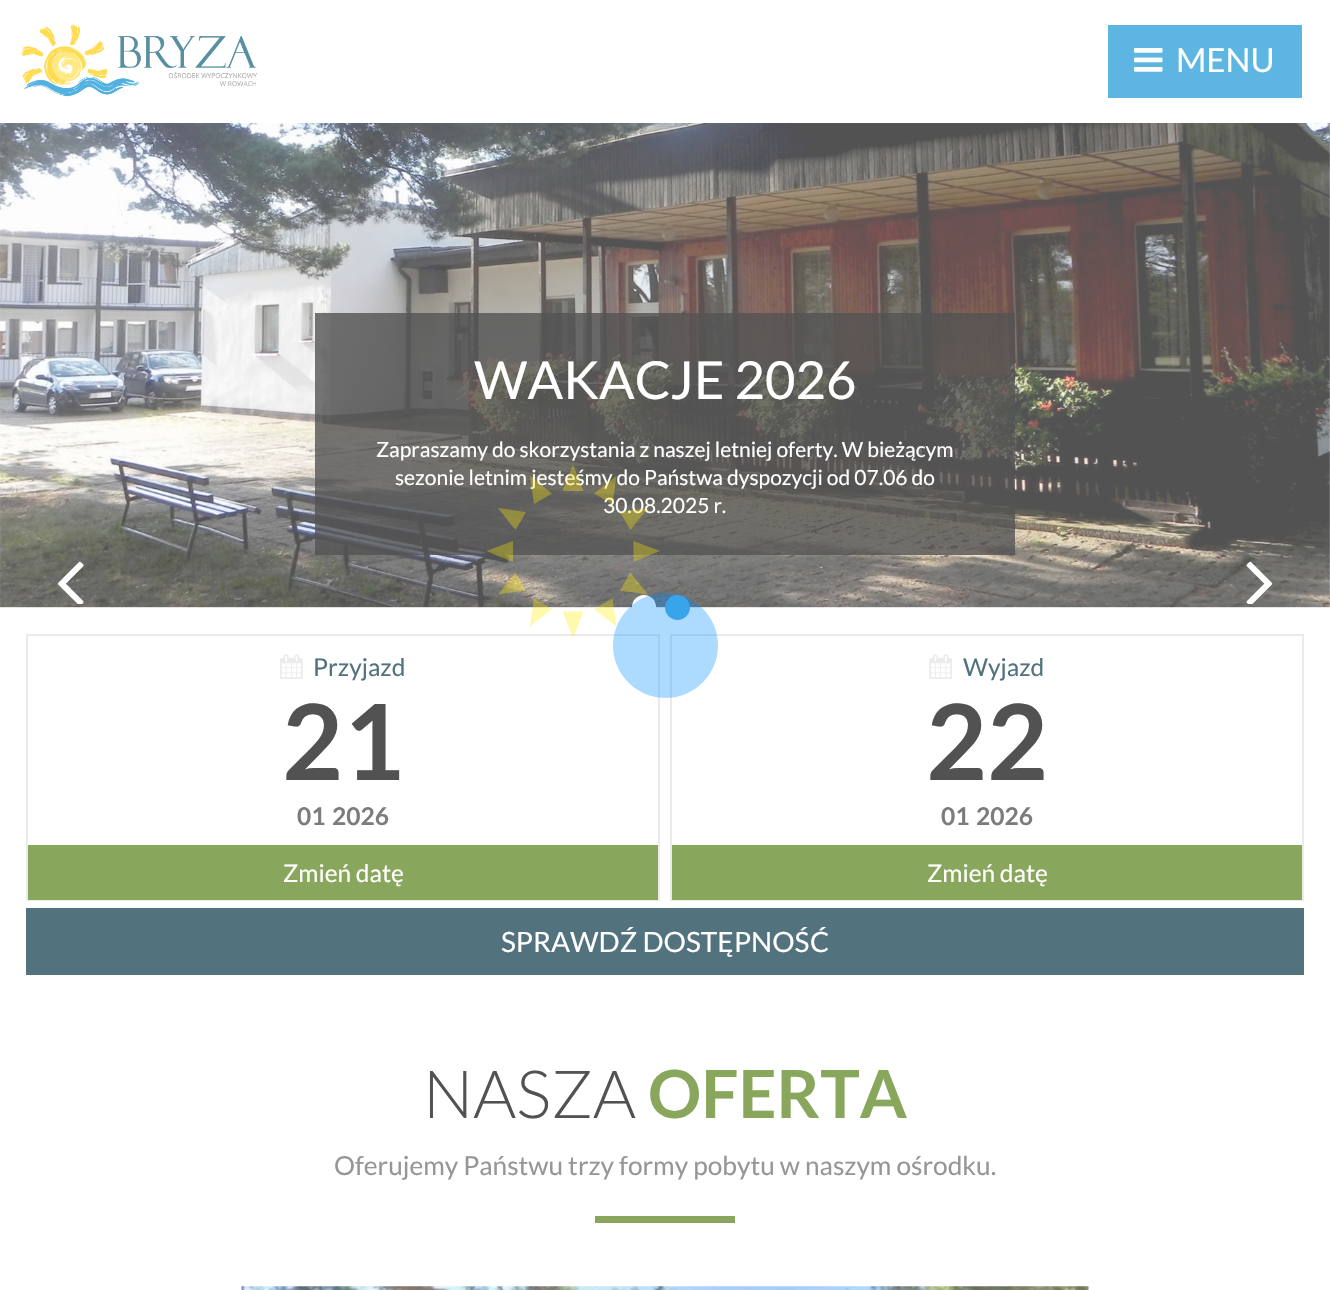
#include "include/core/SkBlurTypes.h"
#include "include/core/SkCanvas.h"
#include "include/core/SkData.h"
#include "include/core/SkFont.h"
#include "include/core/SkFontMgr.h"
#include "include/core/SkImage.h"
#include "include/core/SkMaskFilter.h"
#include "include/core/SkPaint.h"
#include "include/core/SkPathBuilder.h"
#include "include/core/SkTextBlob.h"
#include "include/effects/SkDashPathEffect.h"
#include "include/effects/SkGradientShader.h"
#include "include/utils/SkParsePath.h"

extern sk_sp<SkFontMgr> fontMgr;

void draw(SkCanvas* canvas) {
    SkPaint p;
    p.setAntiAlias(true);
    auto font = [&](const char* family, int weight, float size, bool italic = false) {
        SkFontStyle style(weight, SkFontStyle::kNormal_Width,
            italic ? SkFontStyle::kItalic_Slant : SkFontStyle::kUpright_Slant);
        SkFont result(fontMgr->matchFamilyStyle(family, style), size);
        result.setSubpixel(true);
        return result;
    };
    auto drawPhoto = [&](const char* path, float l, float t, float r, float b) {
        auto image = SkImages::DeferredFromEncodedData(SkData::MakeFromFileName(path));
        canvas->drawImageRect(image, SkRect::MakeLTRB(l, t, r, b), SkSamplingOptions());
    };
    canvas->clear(0xFFFFFFFF);
    drawPhoto("media/1.png", 21, 24, 258, 97);
    p.setColor(0xFF5DB6E2);
    canvas->drawRect(SkRect::MakeLTRB(1108, 25, 1302, 98), p);
    drawPhoto("media/2.png", 1134, 48, 1163, 72);
    auto font1 = font("Lato", 400, 33);
    p.setColor(0xFFFFFFFF);
    canvas->drawString("MENU", 1176, 72, font1, p);
    drawPhoto("media/3.png", 0, 123, 1330, 608);
    p.setColor(0xCC525252);
    canvas->drawRect(SkRect::MakeLTRB(315, 313, 1015, 555), p);
    auto font2 = font("Lato", 400, 52.5f);
    p.setColor(0xFFFFFFFF);
    canvas->drawString("WAKACJE 2026", 474, 399, font2, p);
    auto font3 = font("Lato", 400, 21);
    {
        const struct { const char* s; float x, y; } items[] = {
            {"Zapraszamy do skorzystania z naszej letniej oferty. W bieżącym", 376, 457},
            {"sezonie letnim jesteśmy do Państwa dyspozycji od 07.06 do", 395, 485},
            {"30.08.2025 r.", 603, 513},
        };
        for (auto [s, x, y] : items) {
            canvas->drawString(s, x, y, font3, p);
        }
    }
    drawPhoto("media/4.png", 58, 561, 84, 604);
    drawPhoto("media/5.png", 1246, 561, 1273, 604);
    canvas->drawRoundRect(SkRect::MakeLTRB(632, 595, 656, 620), 12, 12, p);
    p.setColor(0xFF52B1E0);
    canvas->drawCircle(677.5f, 607.5f, 12.5f, p);
    p.setStyle(SkPaint::kStroke_Style);
    p.setStrokeWidth(2);
    p.setColor(0xFFEBEBEB);
    canvas->drawRect(SkRect::MakeLTRB(27, 635, 659, 900), p);
    drawPhoto("media/6.png", 280, 654, 303, 679);
    auto font4 = font("Lato", 400, 24.5f);
    p.setStyle(SkPaint::kFill_Style);
    p.setColor(0xFF52727E);
    canvas->drawString("Przyjazd", 313, 676, font4, p);
    auto font5 = font("Lato", 700, 105);
    p.setColor(0xFF525252);
    canvas->drawString("21", 282, 780, font5, p);
    auto font6 = font("Lato", 700, 24.5f);
    p.setColor(0xFF7C7C7C);
    canvas->drawString("01", 297, 825, font6, p);
    canvas->drawString("2026", 332, 825, font6, p);
    p.setColor(0xFF89A65D);
    canvas->drawRect(SkRect::MakeLTRB(28, 845, 658, 900), p);
    p.setColor(0xFFFFFFFF);
    canvas->drawString("Zmień datę", 283, 882, font4, p);
    p.setStyle(SkPaint::kStroke_Style);
    p.setColor(0xFFEBEBEB);
    canvas->drawRect(SkRect::MakeLTRB(671, 635, 1303, 900), p);
    drawPhoto("media/7.png", 929, 654, 952, 679);
    p.setStyle(SkPaint::kFill_Style);
    p.setColor(0xFF52727E);
    canvas->drawString("Wyjazd", 963, 676, font4, p);
    p.setColor(0xFF525252);
    canvas->drawString("22", 926, 780, font5, p);
    p.setColor(0xFF7C7C7C);
    canvas->drawString("01", 941, 825, font6, p);
    canvas->drawString("2026", 976, 825, font6, p);
    p.setColor(0xFF89A65D);
    canvas->drawRect(SkRect::MakeLTRB(672, 845, 1302, 900), p);
    p.setColor(0xFFFFFFFF);
    canvas->drawString("Zmień datę", 927, 882, font4, p);
    p.setColor(0xFF52727E);
    canvas->drawRect(SkRect::MakeLTRB(26, 908, 1304, 975), p);
    auto font7 = font("Lato", 400, 28);
    p.setColor(0xFFFFFFFF);
    canvas->drawString("SPRAWDŹ DOSTĘPNOŚĆ", 501, 952, font7, p);
    p.setColor(0x52FFEC00);
    canvas->drawPath(SkPathBuilder().moveTo(526, 512).lineTo(515.5f, 530).lineTo(498, 508).close().moveTo(552, 493.5f).lineTo(534, 504).lineTo(530, 476).close().detach(), p);
    canvas->drawPath(SkPathBuilder().moveTo(583.5f, 491).lineTo(562.5f, 491).lineTo(573, 464.5f).close().moveTo(612.5f, 504).lineTo(594, 493.5f).lineTo(616.5f, 476).close().detach(), p);
    canvas->drawPath(SkPathBuilder().moveTo(630.5f, 530).lineTo(620, 512).lineTo(648, 508).close().moveTo(633.5f, 562).lineTo(633.5f, 541).lineTo(660, 551).close().detach(), p);
    canvas->drawPath(SkPathBuilder().moveTo(515.5f, 572.5f).lineTo(526, 590.5f).lineTo(498, 594.5f).close().moveTo(513, 541).lineTo(513, 562).lineTo(486.5f, 551).close().detach(), p);
    canvas->drawPath(SkPathBuilder().moveTo(562.5f, 611.5f).lineTo(583.5f, 611.5f).lineTo(573, 638).close().moveTo(534, 598.5f).lineTo(552, 609).lineTo(530, 626.5f).close().detach(), p);
    p.setColor(0x52008DFF);
    canvas->drawCircle(665.5f, 645.5f, 52.5f, p);
    p.setColor(0x52FFEC00);
    canvas->drawPath(SkPathBuilder().moveTo(620, 590.5f).lineTo(630.5f, 572.5f).lineTo(648, 594.5f).close().moveTo(594, 609).lineTo(612.5f, 598.5f).lineTo(616.5f, 626.5f).close().detach(), p);
    auto font8 = font("Lato", 300, 66.5f);
    p.setColor(0xFF525252);
    canvas->drawString("NASZA", 423, 1118, font8, p);
    auto font9 = font("Lato", 700, 66.5f);
    p.setColor(0xFF89A65D);
    canvas->drawString("OFERTA", 648, 1118, font9, p);
    auto font10 = font("Lato", 400, 26.25f);
    p.setColor(0xFF969696);
    canvas->drawString("Oferujemy Państwu trzy formy pobytu w naszym ośrodku.", 334, 1175, font10, p);
    p.setColor(0xFF89A65D);
    canvas->drawRect(SkRect::MakeLTRB(595, 1216, 735, 1223), p);
    drawPhoto("media/8.png", 241, 1286, 1089, 1290);
}
